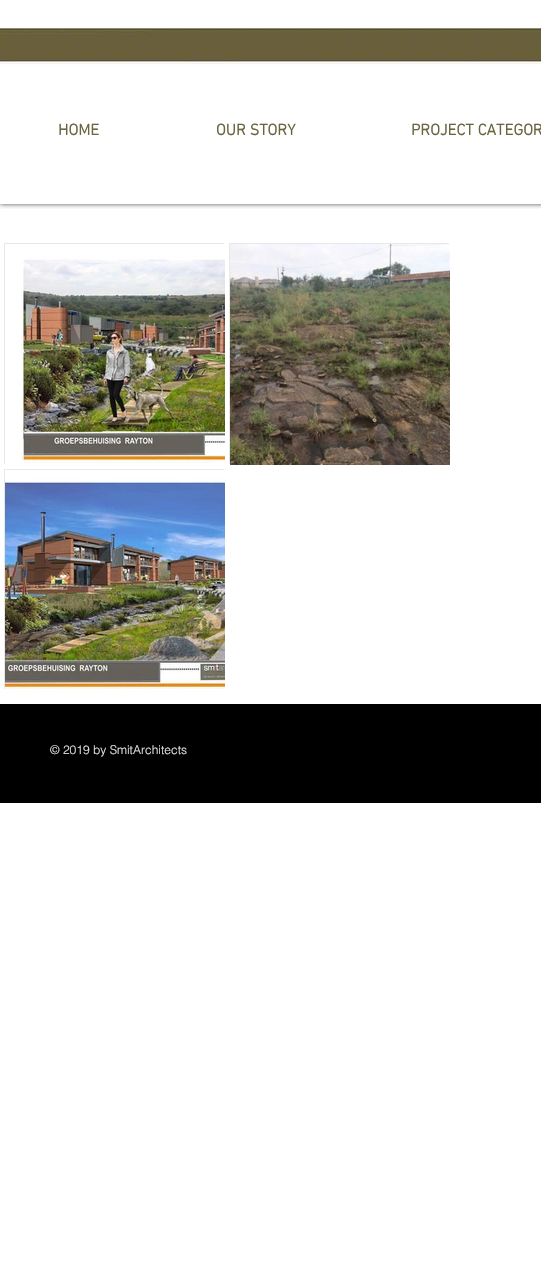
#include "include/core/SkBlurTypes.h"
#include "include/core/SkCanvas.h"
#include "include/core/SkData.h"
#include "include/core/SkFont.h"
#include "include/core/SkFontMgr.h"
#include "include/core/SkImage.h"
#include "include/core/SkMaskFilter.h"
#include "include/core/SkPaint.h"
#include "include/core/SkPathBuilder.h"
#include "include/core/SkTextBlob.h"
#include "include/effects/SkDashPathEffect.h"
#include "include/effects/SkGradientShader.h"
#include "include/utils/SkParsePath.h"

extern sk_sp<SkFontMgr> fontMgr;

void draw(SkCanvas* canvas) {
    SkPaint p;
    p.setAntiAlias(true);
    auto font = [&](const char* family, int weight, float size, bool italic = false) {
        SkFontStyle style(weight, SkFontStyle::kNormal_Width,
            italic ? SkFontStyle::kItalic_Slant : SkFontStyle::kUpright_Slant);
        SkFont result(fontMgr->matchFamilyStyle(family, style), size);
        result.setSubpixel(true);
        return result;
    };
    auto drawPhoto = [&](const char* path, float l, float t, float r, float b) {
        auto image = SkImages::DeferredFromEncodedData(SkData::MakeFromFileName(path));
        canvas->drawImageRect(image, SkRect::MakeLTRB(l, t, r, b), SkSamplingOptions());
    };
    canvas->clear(0xFFFFFFFF);
    canvas->save();
    canvas->clipRect(SkRect::MakeLTRB(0, 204, 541, 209));
    p.setColor(0xB3000000);
    p.setMaskFilter(SkMaskFilter::MakeBlur(kNormal_SkBlurStyle, 2.5f));
    canvas->drawRect(SkRect::MakeLTRB(0, 0, 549, 204), p);
    p.setMaskFilter(nullptr);
    canvas->restore();
    drawPhoto("media/1.png", 0, 25, 541, 65);
    auto font1 = font("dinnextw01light", 700, 16);
    p.setColor(0xFF69663F);
    {
        const struct { const char* s; float x, y; } items[] = {
            {"HOME", 58, 135},
            {"OUR STORY", 216, 135},
            {"PROJECT CATEGOR", 411, 135},
        };
        for (auto [s, x, y] : items) {
            canvas->drawString(s, x, y, font1, p);
        }
    }
    p.setColor(0xFFE8E8E8);
    canvas->drawRect(SkRect::MakeLTRB(4, 243, 224, 464), p);
    drawPhoto("media/2.png", 5, 244, 225, 464);
    canvas->drawRect(SkRect::MakeLTRB(4, 469, 224, 689), p);
    drawPhoto("media/3.png", 5, 470, 225, 689);
    canvas->drawRect(SkRect::MakeLTRB(229, 243, 449, 464), p);
    drawPhoto("media/4.png", 230, 244, 450, 465);
    p.setColor(0xFF000000);
    canvas->drawRect(SkRect::MakeLTRB(0, 704, 541, 803), p);
    auto font2 = font("helvetica", 300, 12);
    p.setColor(0xFFE8E8E8);
    canvas->drawString("© 2019 by SmitArchitects", 50, 754, font2, p);
}
